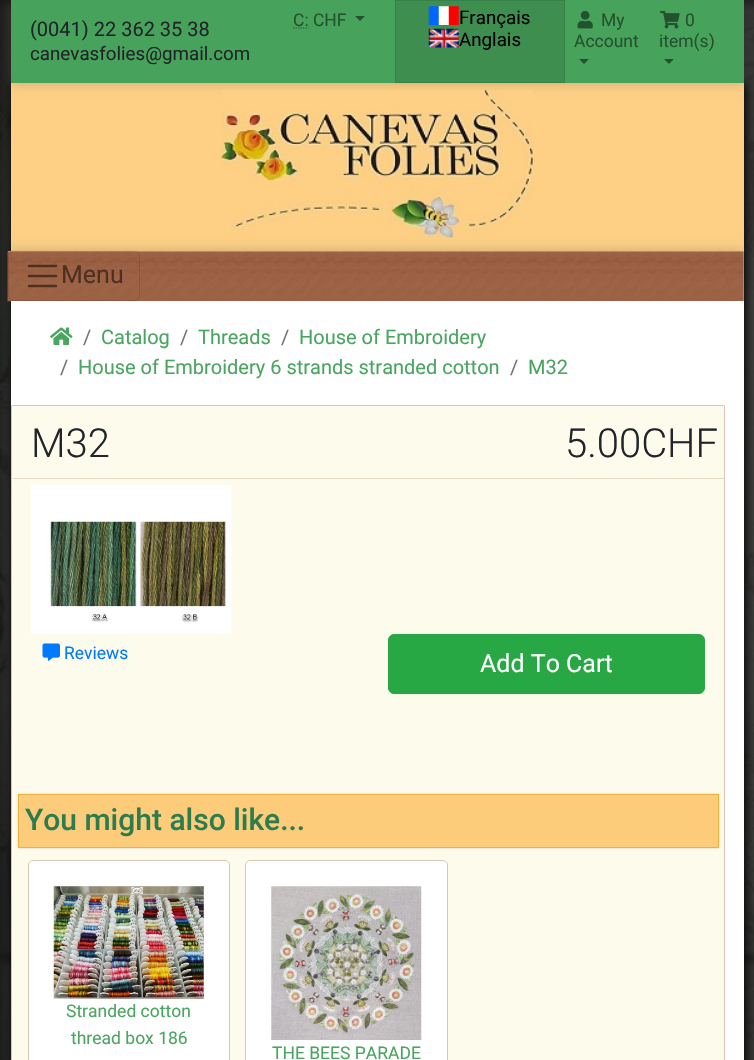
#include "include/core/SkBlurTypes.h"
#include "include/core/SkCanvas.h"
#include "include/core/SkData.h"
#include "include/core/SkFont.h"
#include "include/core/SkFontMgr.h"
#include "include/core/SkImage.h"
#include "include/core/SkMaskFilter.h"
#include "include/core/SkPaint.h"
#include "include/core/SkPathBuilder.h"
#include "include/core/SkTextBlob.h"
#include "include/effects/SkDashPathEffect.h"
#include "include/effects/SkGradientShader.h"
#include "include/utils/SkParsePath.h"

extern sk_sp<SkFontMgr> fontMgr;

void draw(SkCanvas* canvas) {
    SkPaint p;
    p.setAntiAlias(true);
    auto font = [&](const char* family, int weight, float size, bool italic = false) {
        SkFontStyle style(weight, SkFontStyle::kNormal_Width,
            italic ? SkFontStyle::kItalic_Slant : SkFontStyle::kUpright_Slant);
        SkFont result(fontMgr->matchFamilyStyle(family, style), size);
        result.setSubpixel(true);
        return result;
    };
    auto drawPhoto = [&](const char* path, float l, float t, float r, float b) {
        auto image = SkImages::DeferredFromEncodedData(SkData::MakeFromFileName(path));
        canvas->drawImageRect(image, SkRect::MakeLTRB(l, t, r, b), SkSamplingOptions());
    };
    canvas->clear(0xFFFFFFFF);
    drawPhoto("media/1.png", 0, 0, 754, 1060);
    p.setColor(0xFF010101);
    p.setMaskFilter(SkMaskFilter::MakeBlur(kNormal_SkBlurStyle, 5));
    canvas->drawRect(SkRect::MakeLTRB(11, 83, 746, 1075), p);
    p.setMaskFilter(nullptr);
    p.setColor(0xFF47A35B);
    canvas->drawRect(SkRect::MakeLTRB(11, 0, 744, 83), p);
    p.setColor(0xFFFDD086);
    canvas->drawRect(SkRect::MakeLTRB(11, 83, 744, 251), p);
    canvas->save();
    canvas->clipPath(SkPathBuilder(SkPathFillType::kEvenOdd).moveTo(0, 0).lineTo(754, 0).lineTo(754, 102).lineTo(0, 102).close().moveTo(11, 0).lineTo(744, 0).lineTo(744, 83).lineTo(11, 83).close().detach(), true);
    p.setColor(0x33000000);
    p.setMaskFilter(SkMaskFilter::MakeBlur(kNormal_SkBlurStyle, 6));
    canvas->drawRect(SkRect::MakeLTRB(11, 0, 744, 83), p);
    p.setMaskFilter(nullptr);
    canvas->restore();
    auto font1 = font("Roboto", 400, 20);
    p.setColor(0xFF212529);
    canvas->drawString("(0041) 22 362 35 38", 30, 36, font1, p);
    auto font2 = font("Roboto", 400, 18.75f);
    canvas->drawString("canevasfolies@gmail.com", 30, 60, font2, p);
    auto font3 = font("Roboto", 400, 17.5f);
    p.setColor(0xFF24522E);
    canvas->drawString("C: CHF", 293, 26, font3, p);
    p.setStyle(SkPaint::kStroke_Style);
    p.setStrokeWidth(1.2f);
    p.setPathEffect(SkDashPathEffect::Make({{1.25f, 1.25f}}, 0));
    canvas->drawPath(SkPathBuilder().moveTo(293, 28).lineTo(308.5f, 28).detach(), p);
    p.setPathEffect(nullptr);
    p.setStyle(SkPaint::kFill_Style);
    canvas->drawPath(SkPathBuilder().moveTo(355, 16).lineTo(365, 16).lineTo(360, 21).close().detach(), p);
    p.setColor(0xFF3E8E50);
    canvas->drawRect(SkRect::MakeLTRB(395.5f, 0.5f, 564.5f, 82.5f), p);
    p.setStyle(SkPaint::kStroke_Style);
    p.setStrokeWidth(1);
    p.setColor(0xFF378047);
    canvas->drawRect(SkRect::MakeLTRB(395.5f, 0.5f, 564.5f, 82.5f), p);
    drawPhoto("media/2.png", 428, 6, 459, 25);
    p.setStyle(SkPaint::kFill_Style);
    p.setColor(0xFF000000);
    canvas->drawString("Français", 459, 24, font2, p);
    drawPhoto("media/3.png", 428, 28, 459, 48);
    canvas->drawString("Anglais", 459, 46, font2, p);
    drawPhoto("media/4.png", 577, 11, 593, 29);
    p.setColor(0xFF24522E);
    canvas->drawString("My", 601, 26, font3, p);
    canvas->drawString("Account", 574, 47, font3, p);
    canvas->drawPath(SkPathBuilder().moveTo(579, 59).lineTo(589, 59).lineTo(584, 64).close().detach(), p);
    drawPhoto("media/5.png", 660, 10, 680, 29);
    canvas->drawString("0", 685, 26, font3, p);
    canvas->drawString("item(s)", 659, 47, font3, p);
    canvas->drawPath(SkPathBuilder().moveTo(664, 59).lineTo(674, 59).lineTo(669, 64).close().detach(), p);
    drawPhoto("media/6.png", 221, 90, 534, 238);
    p.setColor(0xFFF8F9FA);
    canvas->drawRect(SkRect::MakeLTRB(8, 251, 744, 301), p);
    drawPhoto("media/7.png", 7, 251, 744, 302);
    canvas->save();
    canvas->clipPath(SkPathBuilder(SkPathFillType::kEvenOdd).moveTo(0, 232).lineTo(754, 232).lineTo(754, 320).lineTo(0, 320).close().moveTo(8, 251).lineTo(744, 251).lineTo(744, 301).lineTo(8, 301).close().detach(), true);
    p.setColor(0x33000000);
    p.setMaskFilter(SkMaskFilter::MakeBlur(kNormal_SkBlurStyle, 6));
    canvas->drawRect(SkRect::MakeLTRB(8, 251, 744, 301), p);
    p.setMaskFilter(nullptr);
    canvas->restore();
    p.setStyle(SkPaint::kStroke_Style);
    p.setColor(0x1A000000);
    canvas->drawRoundRect(SkRect::MakeLTRB(8.5f, 251.5f, 139.5f, 300.5f), 4.5f, 4.5f, p);
    p.setStrokeWidth(2.5f);
    p.setStrokeCap(SkPaint::kRound_Cap);
    p.setColor(0x80000000);
    canvas->drawPath(SkPathBuilder().moveTo(29, 266).lineTo(56, 266).moveTo(29, 276).lineTo(56, 276).moveTo(29, 286).lineTo(56, 286).detach(), p);
    auto font4 = font("Roboto", 400, 25);
    p.setStyle(SkPaint::kFill_Style);
    p.setColor(0xFF4E3022);
    canvas->drawString("Menu", 61, 283, font4, p);
    p.setColor(0xFFFFFFFF);
    canvas->drawRect(SkRect::MakeLTRB(11, 301, 744, 405), p);
    drawPhoto("media/8.png", 50, 327, 73, 345);
    p.setColor(0xFF6C757D);
    canvas->drawString("/", 83, 344, font1, p);
    p.setColor(0xFF4BA560);
    canvas->drawString("Catalog", 101, 344, font1, p);
    p.setColor(0xFF6C757D);
    canvas->drawString("/", 180, 344, font1, p);
    p.setColor(0xFF4BA560);
    canvas->drawString("Threads", 198, 344, font1, p);
    p.setColor(0xFF6C757D);
    canvas->drawString("/", 281, 344, font1, p);
    p.setColor(0xFF4BA560);
    canvas->drawString("House of Embroidery", 299, 344, font1, p);
    p.setColor(0xFF6C757D);
    canvas->drawString("/", 60, 374, font1, p);
    p.setColor(0xFF4BA560);
    canvas->drawString("House of Embroidery 6 strands stranded cotton", 78, 374, font1, p);
    p.setColor(0xFF6C757D);
    canvas->drawString("/", 510, 374, font1, p);
    p.setColor(0xFF4BA560);
    canvas->drawString("M32", 528, 374, font1, p);
    p.setColor(0xFFFFFFFF);
    canvas->drawRect(SkRect::MakeLTRB(11, 405, 744, 1060), p);
    p.setColor(0xFFFDFCEC);
    canvas->drawRoundRect(SkRect::MakeLTRB(11.5f, 405.5f, 724.5f, 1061.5f), 0.5f, 0.5f, p);
    p.setStyle(SkPaint::kStroke_Style);
    p.setStrokeWidth(1);
    p.setStrokeCap(SkPaint::kButt_Cap);
    p.setColor(0xFFDDC4B5);
    canvas->drawRoundRect(SkRect::MakeLTRB(11.5f, 405.5f, 724.5f, 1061.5f), 0.5f, 0.5f, p);
    p.setStyle(SkPaint::kFill_Style);
    p.setColor(0xFFE6DABF);
    canvas->drawRect(SkRect::MakeLTRB(13, 478, 724, 479), p);
    auto font5 = font("Roboto", 300, 40);
    p.setColor(0xFF212529);
    canvas->drawString("M32", 31, 457, font5, p);
    canvas->drawString("5.00CHF", 565, 457, font5, p);
    drawPhoto("media/9.png", 31, 485, 232, 634);
    drawPhoto("media/10.png", 42, 643, 60, 661);
    p.setColor(0xFF007BFF);
    canvas->drawString("Reviews", 64, 659, font3, p);
    p.setColor(0xFF28A745);
    canvas->drawRoundRect(SkRect::MakeLTRB(388.5f, 634.5f, 704.5f, 693.5f), 5.5f, 5.5f, p);
    p.setStyle(SkPaint::kStroke_Style);
    canvas->drawRoundRect(SkRect::MakeLTRB(388.5f, 634.5f, 704.5f, 693.5f), 5.5f, 5.5f, p);
    p.setStyle(SkPaint::kFill_Style);
    p.setColor(0xFFFFFFFF);
    canvas->drawString("Add To Cart", 480, 672, font4, p);
    p.setColor(0x33000000);
    p.setMaskFilter(SkMaskFilter::MakeBlur(kNormal_SkBlurStyle, 1));
    canvas->drawRect(SkRect::MakeLTRB(18, 794, 719, 848), p);
    p.setMaskFilter(nullptr);
    p.setColor(0xFFFDCC7B);
    canvas->drawRect(SkRect::MakeLTRB(18.5f, 794.5f, 718.5f, 847.5f), p);
    p.setStyle(SkPaint::kStroke_Style);
    p.setColor(0xFFEAB340);
    canvas->drawRect(SkRect::MakeLTRB(18.5f, 794.5f, 718.5f, 847.5f), p);
    auto font6 = font("Roboto", 500, 30);
    p.setStyle(SkPaint::kFill_Style);
    p.setColor(0xFF2C7C4E);
    canvas->drawString("You might also like...", 25, 830, font6, p);
    p.setColor(0xFFFFFFFF);
    canvas->drawRoundRect(SkRect::MakeLTRB(28.5f, 860.5f, 229.5f, 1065.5f), 4.5f, 4.5f, p);
    p.setStyle(SkPaint::kStroke_Style);
    p.setColor(0xFFDDC4B5);
    canvas->drawRoundRect(SkRect::MakeLTRB(28.5f, 860.5f, 229.5f, 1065.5f), 4.5f, 4.5f, p);
    drawPhoto("media/11.png", 53, 886, 204, 999);
    p.setStyle(SkPaint::kFill_Style);
    p.setColor(0xFF4BA560);
    canvas->drawString("Stranded cotton", 66, 1017, font3, p);
    canvas->drawString("thread box 186", 71, 1044, font3, p);
    p.setColor(0xFFFFFFFF);
    canvas->drawRoundRect(SkRect::MakeLTRB(245.5f, 860.5f, 447.5f, 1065.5f), 4.5f, 4.5f, p);
    p.setStyle(SkPaint::kStroke_Style);
    p.setColor(0xFFDDC4B5);
    canvas->drawRoundRect(SkRect::MakeLTRB(245.5f, 860.5f, 447.5f, 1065.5f), 4.5f, 4.5f, p);
    drawPhoto("media/12.png", 271, 886, 422, 1040);
    p.setStyle(SkPaint::kFill_Style);
    p.setColor(0xFF4BA560);
    canvas->drawString("THE BEES PARADE", 272, 1059, font3, p);
}
